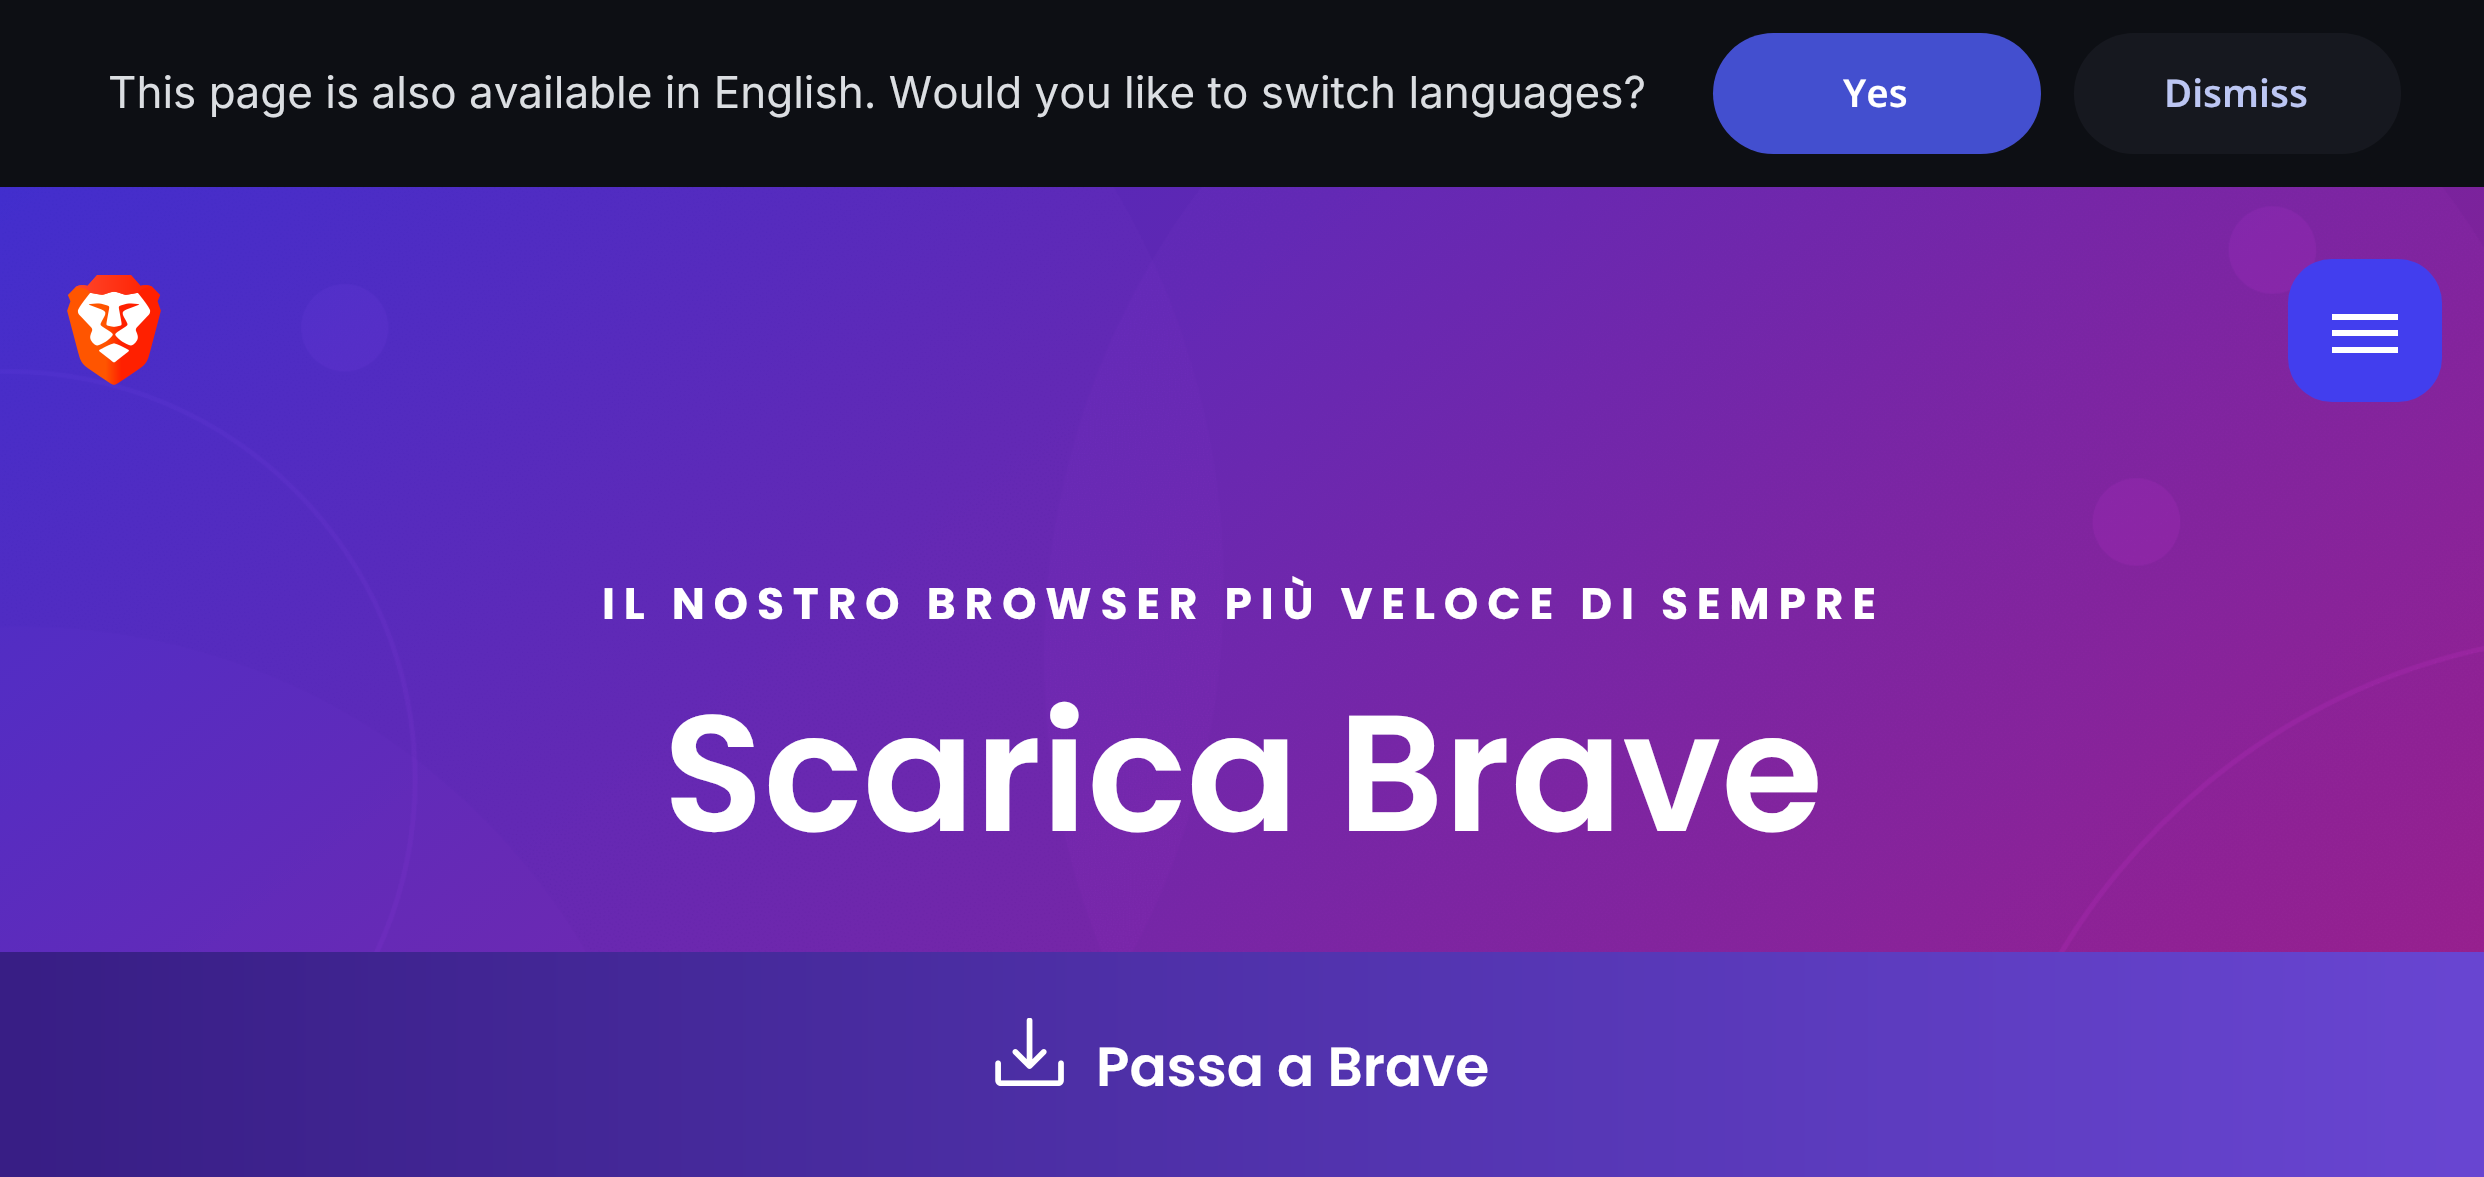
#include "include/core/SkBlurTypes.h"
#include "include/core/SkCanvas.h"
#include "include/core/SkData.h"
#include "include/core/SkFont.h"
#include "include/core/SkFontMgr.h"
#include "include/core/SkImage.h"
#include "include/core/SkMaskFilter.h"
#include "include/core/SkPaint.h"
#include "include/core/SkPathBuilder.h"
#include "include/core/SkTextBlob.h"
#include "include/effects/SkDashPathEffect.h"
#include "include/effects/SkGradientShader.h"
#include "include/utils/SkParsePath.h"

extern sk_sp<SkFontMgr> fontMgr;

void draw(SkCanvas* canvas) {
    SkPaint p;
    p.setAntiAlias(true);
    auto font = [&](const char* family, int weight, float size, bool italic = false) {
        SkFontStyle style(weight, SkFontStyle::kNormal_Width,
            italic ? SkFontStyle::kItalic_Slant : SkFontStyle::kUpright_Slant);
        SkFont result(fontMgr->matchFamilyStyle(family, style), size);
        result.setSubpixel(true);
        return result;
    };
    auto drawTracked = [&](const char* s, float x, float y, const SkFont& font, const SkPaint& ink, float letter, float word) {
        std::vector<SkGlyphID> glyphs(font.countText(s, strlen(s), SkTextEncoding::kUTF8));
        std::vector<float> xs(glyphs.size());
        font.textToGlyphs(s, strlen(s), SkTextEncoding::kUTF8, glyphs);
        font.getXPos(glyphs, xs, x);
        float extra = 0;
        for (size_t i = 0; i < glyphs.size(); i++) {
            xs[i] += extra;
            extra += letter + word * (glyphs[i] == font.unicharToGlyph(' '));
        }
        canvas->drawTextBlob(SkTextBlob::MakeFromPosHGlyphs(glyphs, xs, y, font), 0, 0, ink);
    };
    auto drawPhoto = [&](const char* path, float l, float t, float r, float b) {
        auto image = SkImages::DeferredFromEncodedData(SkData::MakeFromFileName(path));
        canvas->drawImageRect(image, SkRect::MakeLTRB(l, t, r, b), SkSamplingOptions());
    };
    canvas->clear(0xFFFFFFFF);
    p.setColor(0xFF0D0F14);
    canvas->drawRect(SkRect::MakeLTRB(0, 0, 2484, 187), p);
    auto font1 = font("Inter", 400, 44);
    p.setColor(0xFFDBDEE2);
    canvas->drawString("This page is also available in English. Would you like to switch languages?", 108, 108, font1, p);
    p.setColor(0xFF434FCF);
    canvas->drawRoundRect(SkRect::MakeLTRB(1713, 33, 2041, 154), 60.5f, 60.5f, p);
    auto font2 = font("Noto Sans", 600, 38.5f);
    p.setColor(0xFFFFFFFF);
    canvas->drawString("Yes", 1843, 107, font2, p);
    p.setColor(0xFF16181F);
    canvas->drawRoundRect(SkRect::MakeLTRB(2074, 33, 2401, 154), 60.5f, 60.5f, p);
    p.setColor(0xFFBCC6F3);
    canvas->drawString("Dismiss", 2164, 107, font2, p);
    drawPhoto("media/2.png", 0, 187, 2484, 952);
    drawPhoto("media/1.png", 67, 275, 161, 385);
    p.setColor(0xFF423EEE);
    canvas->drawRoundRect(SkRect::MakeLTRB(2288, 259, 2442, 402), 44, 44, p);
    {
        const struct { float l, t, r, b; SkColor color; } items[] = {
            {2332, 330, 2398, 336, 0xFFFFFFFF},
            {2332, 314, 2398, 320, 0xFFFFFFFF},
            {2332, 347, 2398, 353, 0xFFFFFFFF},
        };
        for (auto [l, t, r, b, color] : items) {
            p.setColor(color);
            canvas->drawRect(SkRect::MakeLTRB(l, t, r, b), p);
        }
    }
    auto font3 = font("Poppins", 700, 44);
    drawTracked("IL NOSTRO BROWSER PIÙ VELOCE DI SEMPRE", 602, 619, font3, p, 8.8f, 0);
    auto font4 = font("Poppins", 600, 165);
    canvas->drawString("Scarica Brave", 663, 831, font4, p);
    {
        const SkColor colors[] = {0xFF381E85, 0xFF6845D1};
        const float stops[] = {0.01f, 0.99f};
        const SkPoint ends[] = {{0, 1064}, {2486, 1064}};
        p.setShader(SkGradientShader::MakeLinear(ends, colors, stops, 2, SkTileMode::kClamp));
        p.setAlpha(255);
    }
    canvas->drawRect(SkRect::MakeLTRB(0, 952, 2484, 1177), p);
    drawPhoto("media/3.png", 995, 1018, 1064, 1086);
    auto font5 = font("Poppins", 600, 55);
    p.setShader(nullptr);
    p.setColor(0xFFFFFFFF);
    canvas->drawString("Passa a Brave", 1096, 1086, font5, p);
}
